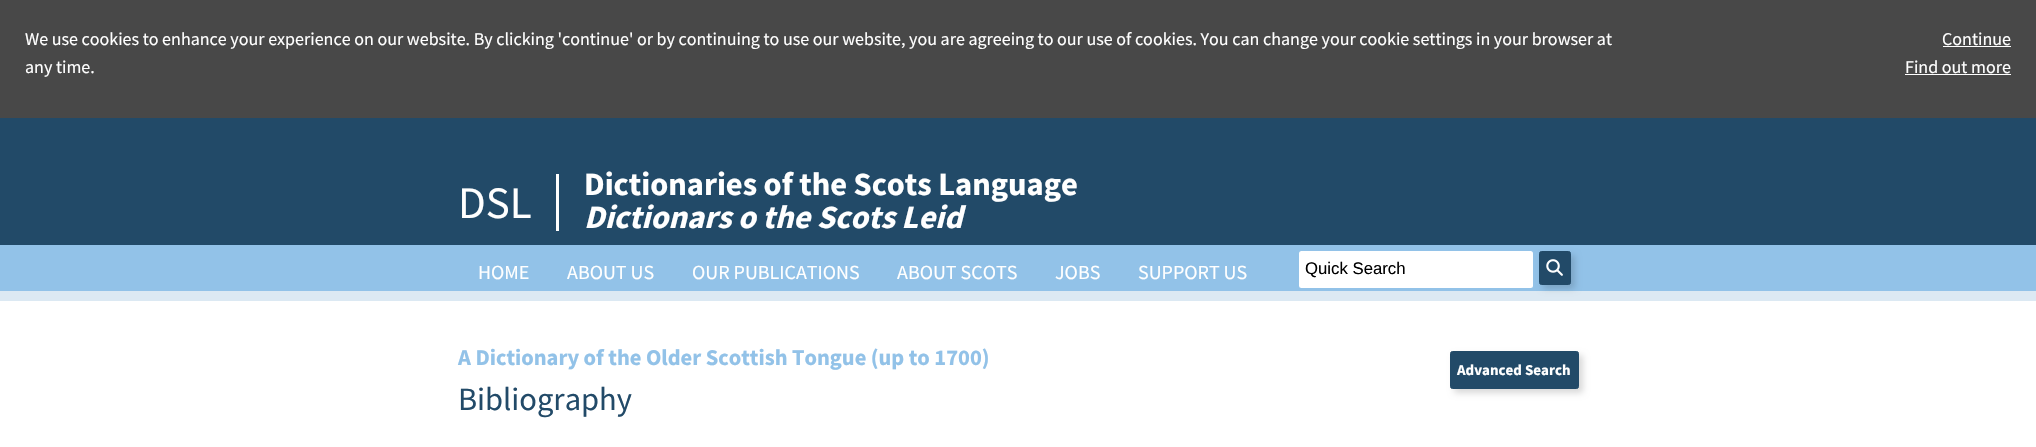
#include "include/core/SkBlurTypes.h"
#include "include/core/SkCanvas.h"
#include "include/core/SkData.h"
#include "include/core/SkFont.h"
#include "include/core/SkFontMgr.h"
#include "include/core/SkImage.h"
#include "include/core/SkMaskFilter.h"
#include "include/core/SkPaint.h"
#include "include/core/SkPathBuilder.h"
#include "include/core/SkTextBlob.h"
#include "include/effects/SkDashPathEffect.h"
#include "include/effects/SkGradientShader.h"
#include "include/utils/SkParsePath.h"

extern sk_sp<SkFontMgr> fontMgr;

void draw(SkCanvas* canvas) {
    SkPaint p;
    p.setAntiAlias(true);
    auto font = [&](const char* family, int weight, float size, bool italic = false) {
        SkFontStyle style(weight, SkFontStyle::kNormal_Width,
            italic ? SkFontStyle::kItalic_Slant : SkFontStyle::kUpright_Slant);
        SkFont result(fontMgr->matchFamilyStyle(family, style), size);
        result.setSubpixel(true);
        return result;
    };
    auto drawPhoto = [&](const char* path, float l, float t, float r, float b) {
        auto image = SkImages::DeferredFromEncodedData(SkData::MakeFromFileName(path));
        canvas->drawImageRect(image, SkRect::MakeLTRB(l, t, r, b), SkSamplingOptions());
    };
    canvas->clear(0xFFFFFFFF);
    p.setColor(0xFF484848);
    canvas->drawRect(SkRect::MakeLTRB(0, 0, 2036, 118), p);
    auto font1 = font("Source Sans Pro", 400, 18);
    p.setColor(0xFFFFFFFF);
    {
        const struct { const char* s; float x, y; } items[] = {
            {"We use cookies to enhance your experience on our website. By clicking 'continue' or by continuing to use our website, you are agreeing to our use of cookies. You can change your cookie settings in your browser at", 25, 45},
            {"any time.", 25, 73},
            {"Continue", 1942, 45},
        };
        for (auto [s, x, y] : items) {
            canvas->drawString(s, x, y, font1, p);
        }
    }
    canvas->drawRect(SkRect::MakeLTRB(1943, 46, 2011, 47), p);
    canvas->drawString("Find out more", 1905, 73, font1, p);
    {
        const struct { float l, t, r, b; SkColor color; } items[] = {
            {1905, 74, 2011, 75, 0xFFFFFFFF},
            {0, 118, 2036, 245, 0xFF224A68},
            {556, 174, 559, 231, 0xFFFFFFFF},
        };
        for (auto [l, t, r, b, color] : items) {
            p.setColor(color);
            canvas->drawRect(SkRect::MakeLTRB(l, t, r, b), p);
        }
    }
    auto font2 = font("Source Sans Pro", 400, 45);
    canvas->drawString("DSL", 458, 218, font2, p);
    auto font3 = font("Source Sans Pro", 700, 32.5f);
    canvas->drawString("Dictionaries of the Scots Language", 584, 195, font3, p);
    auto font4 = font("Source Sans Pro", 700, 32.5f, true);
    canvas->drawString("Dictionars o the Scots Leid", 584, 228, font4, p);
    p.setColor(0xFF92C2E8);
    canvas->drawRect(SkRect::MakeLTRB(0, 245, 2036, 291), p);
    p.setColor(0xFFDCE9F3);
    canvas->drawRect(SkRect::MakeLTRB(0, 291, 2036, 301), p);
    auto font5 = font("Source Sans Pro", 400, 20);
    p.setColor(0xFFFFFFFF);
    {
        const struct { const char* s; float x, y; } items[] = {
            {"HOME", 478, 279},
            {"ABOUT US", 567, 279},
            {"OUR PUBLICATIONS", 692, 279},
            {"ABOUT SCOTS", 897, 279},
            {"JOBS", 1055, 279},
            {"SUPPORT US", 1138, 279},
        };
        for (auto [s, x, y] : items) {
            canvas->drawString(s, x, y, font5, p);
        }
    }
    canvas->drawRoundRect(SkRect::MakeLTRB(1299, 251, 1533, 288), 2.5f, 2.5f, p);
    auto font6 = font("Liberation Sans", 400, 16.75f);
    p.setColor(0xFF000000);
    canvas->drawString("Quick Search", 1305, 274, font6, p);
    p.setColor(0x26000000);
    p.setMaskFilter(SkMaskFilter::MakeBlur(kNormal_SkBlurStyle, 3));
    canvas->drawRoundRect(SkRect::MakeLTRB(1543, 255, 1575, 289), 2.5f, 2.5f, p);
    p.setMaskFilter(nullptr);
    p.setColor(0xFF224A68);
    canvas->drawRoundRect(SkRect::MakeLTRB(1539.5f, 251.5f, 1570.5f, 284.5f), 2, 2, p);
    p.setStyle(SkPaint::kStroke_Style);
    p.setStrokeWidth(1);
    canvas->drawRoundRect(SkRect::MakeLTRB(1539.5f, 251.5f, 1570.5f, 284.5f), 2, 2, p);
    drawPhoto("media/1.png", 1546, 259, 1563, 276);
    auto font7 = font("Source Sans Pro", 700, 22.5f);
    p.setStyle(SkPaint::kFill_Style);
    p.setColor(0xFF92C2E8);
    canvas->drawString("A Dictionary of the Older Scottish Tongue (up to 1700)", 458, 365, font7, p);
    auto font8 = font("Source Sans Pro", 400, 32.5f);
    p.setColor(0xFF224A68);
    canvas->drawString("Bibliography", 458, 410, font8, p);
    p.setColor(0x26000000);
    p.setMaskFilter(SkMaskFilter::MakeBlur(kNormal_SkBlurStyle, 3));
    canvas->drawRoundRect(SkRect::MakeLTRB(1454, 355, 1583, 393), 2.5f, 2.5f, p);
    p.setMaskFilter(nullptr);
    p.setColor(0xFF224A68);
    canvas->drawRoundRect(SkRect::MakeLTRB(1450.5f, 351.5f, 1578.5f, 388.5f), 2, 2, p);
    p.setStyle(SkPaint::kStroke_Style);
    canvas->drawRoundRect(SkRect::MakeLTRB(1450.5f, 351.5f, 1578.5f, 388.5f), 2, 2, p);
    auto font9 = font("Source Sans Pro", 700, 15);
    p.setStyle(SkPaint::kFill_Style);
    p.setColor(0xFFFFFFFF);
    canvas->drawString("Advanced Search", 1457, 375, font9, p);
}
